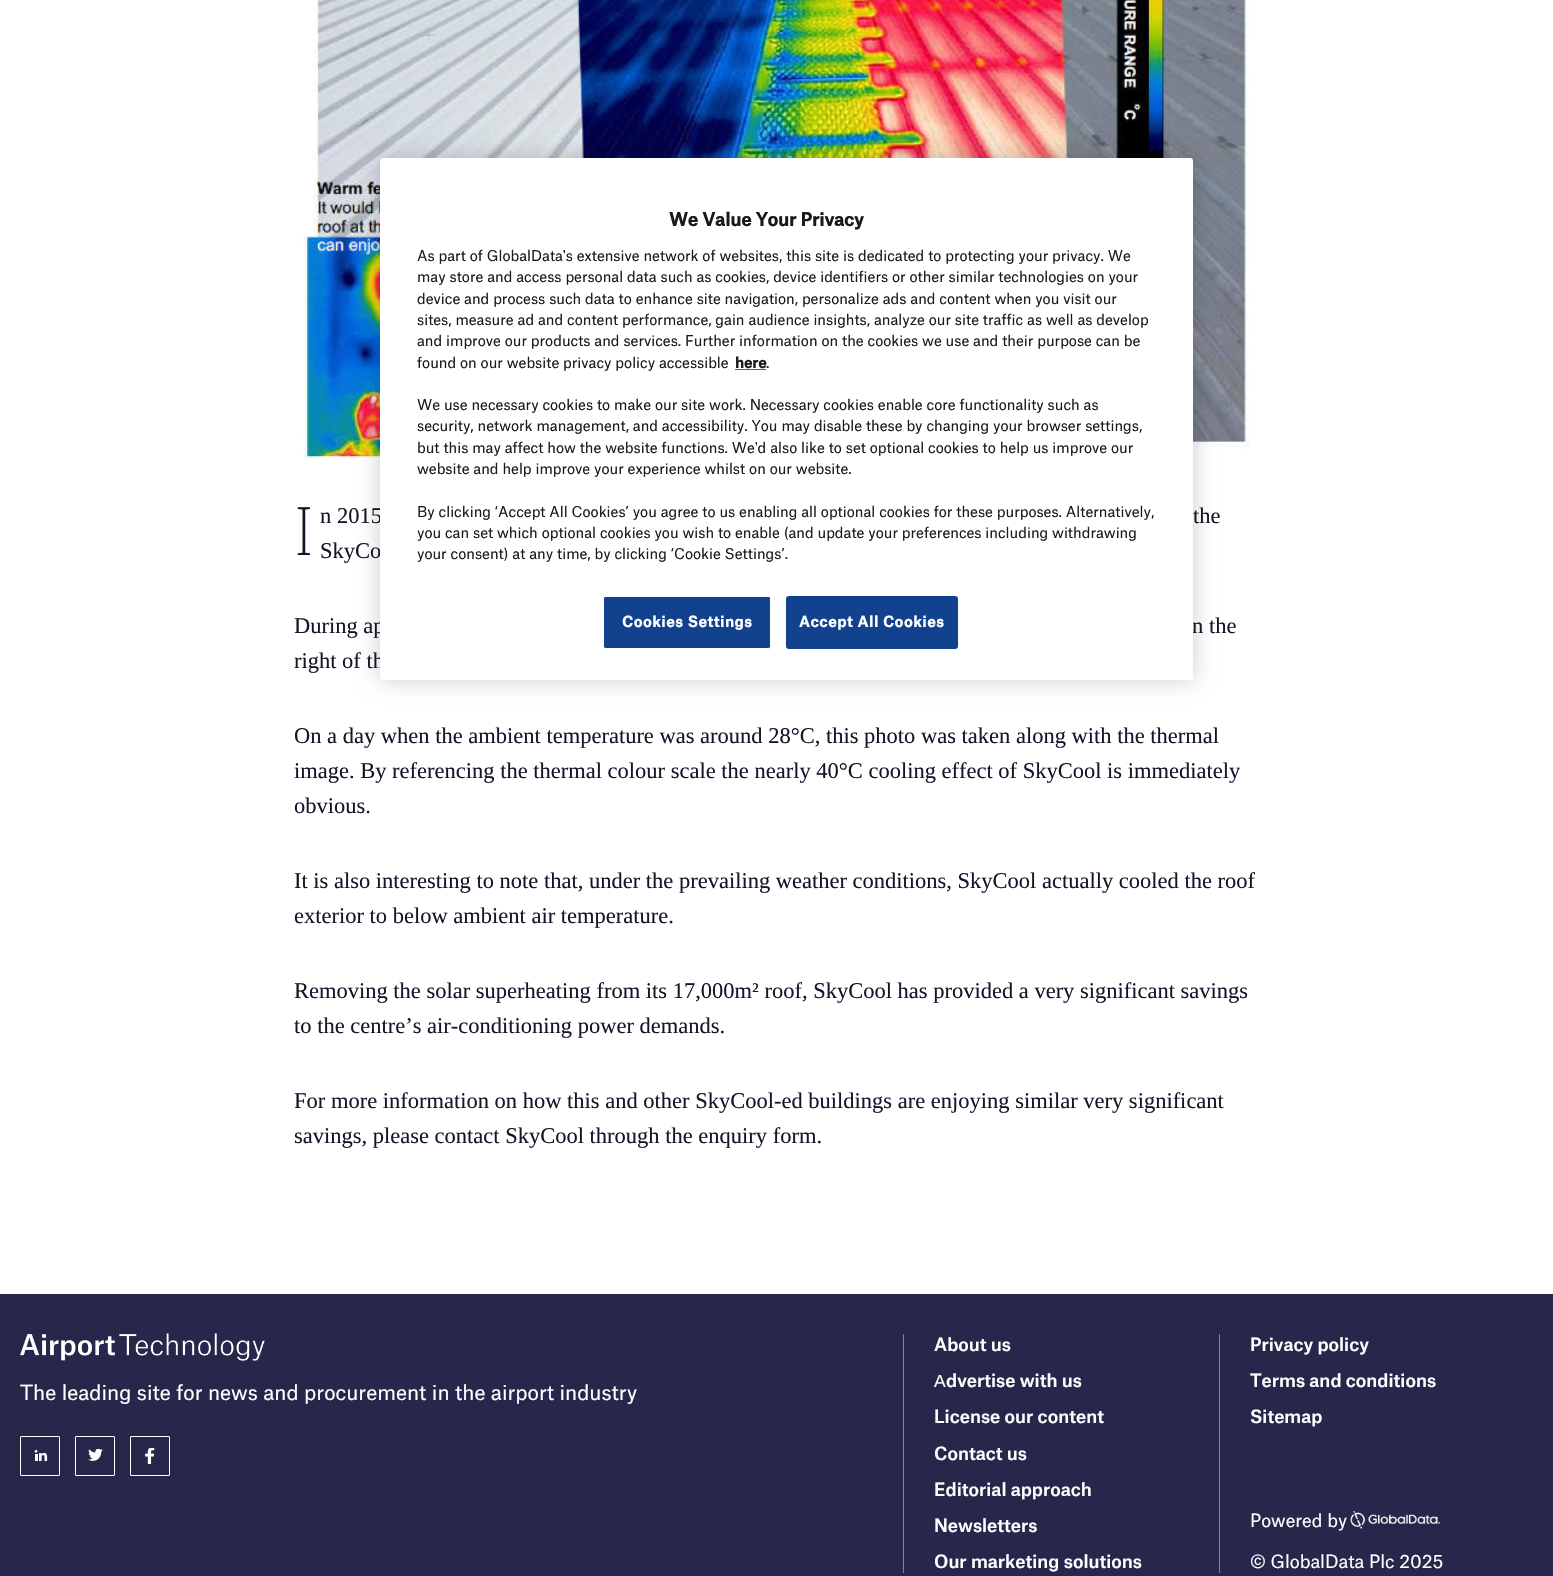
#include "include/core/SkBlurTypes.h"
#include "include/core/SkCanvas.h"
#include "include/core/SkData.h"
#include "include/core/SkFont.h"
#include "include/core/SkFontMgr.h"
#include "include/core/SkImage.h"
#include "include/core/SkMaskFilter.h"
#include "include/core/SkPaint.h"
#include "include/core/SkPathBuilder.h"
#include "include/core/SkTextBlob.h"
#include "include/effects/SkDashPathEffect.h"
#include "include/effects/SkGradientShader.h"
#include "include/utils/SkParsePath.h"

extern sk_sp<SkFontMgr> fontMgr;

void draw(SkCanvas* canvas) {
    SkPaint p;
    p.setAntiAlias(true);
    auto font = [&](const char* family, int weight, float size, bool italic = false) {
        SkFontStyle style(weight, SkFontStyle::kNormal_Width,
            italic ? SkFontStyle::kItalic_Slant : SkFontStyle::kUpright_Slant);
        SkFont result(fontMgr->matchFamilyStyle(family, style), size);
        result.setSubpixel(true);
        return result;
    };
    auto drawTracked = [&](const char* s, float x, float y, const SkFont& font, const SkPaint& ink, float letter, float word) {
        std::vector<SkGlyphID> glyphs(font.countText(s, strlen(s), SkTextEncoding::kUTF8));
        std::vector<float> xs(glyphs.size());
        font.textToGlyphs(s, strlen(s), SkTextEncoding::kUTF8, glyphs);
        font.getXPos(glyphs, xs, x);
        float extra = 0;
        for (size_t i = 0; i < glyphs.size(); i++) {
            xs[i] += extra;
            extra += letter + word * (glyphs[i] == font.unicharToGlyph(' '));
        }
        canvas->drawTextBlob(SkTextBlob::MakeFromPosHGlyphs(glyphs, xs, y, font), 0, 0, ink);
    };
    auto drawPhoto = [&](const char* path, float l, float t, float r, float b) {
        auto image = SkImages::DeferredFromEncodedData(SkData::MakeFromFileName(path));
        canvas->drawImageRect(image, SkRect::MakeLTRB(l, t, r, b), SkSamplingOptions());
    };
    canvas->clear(0xFFFFFFFF);
    drawPhoto("media/1.png", 303, 0, 1250, 459);
    p.setColor(0x33000000);
    p.setMaskFilter(SkMaskFilter::MakeBlur(kNormal_SkBlurStyle, 11));
    canvas->drawRoundRect(SkRect::MakeLTRB(380, 158, 1193, 680), 3, 3, p);
    p.setMaskFilter(nullptr);
    auto font1 = font("Liberation Serif", 400, 22.5f);
    p.setColor(0xFF151529);
    {
        const struct { const char* s; float x, y; } items[] = {
            {"n 2015", 320, 523},
            {"the", 1193, 523},
            {"SkyCo", 320, 558},
            {"During ap", 294, 633},
            {"n the", 1192, 633},
            {"right of th", 294, 668},
        };
        for (auto [s, x, y] : items) {
            canvas->drawString(s, x, y, font1, p);
        }
    }
    p.setColor(0xFFFFFFFF);
    canvas->drawRoundRect(SkRect::MakeLTRB(380, 158, 1193, 680), 3, 3, p);
    auto font2 = font("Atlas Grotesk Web", 700, 17.5f);
    p.setColor(0xFF1A1A1A);
    canvas->drawString("We Value Your Privacy", 669, 226, font2, p);
    auto font3 = font("Atlas Grotesk Web", 400, 14.23f);
    {
        const struct { const char* s; float x, y; } items[] = {
            {"As part of GlobalData's extensive network of websites, this site is dedicated to protecting your privacy. We", 417, 261},
            {"may store and access personal data such as cookies, device identifiers or other similar technologies on your", 417, 282},
            {"device and process such data to enhance site navigation, personalize ads and content when you visit our", 417, 304},
            {"sites, measure ad and content performance, gain audience insights, analyze our site traffic as well as develop", 417, 325},
            {"and improve our products and services. Further information on the cookies we use and their purpose can be", 417, 346},
            {"found on our website privacy policy accessible", 417, 368},
        };
        for (auto [s, x, y] : items) {
            canvas->drawString(s, x, y, font3, p);
        }
    }
    auto font4 = font("Atlas Grotesk Web", 700, 14.23f);
    canvas->drawString("here", 735, 368, font4, p);
    p.setColor(0xFF3860BE);
    canvas->drawRect(SkRect::MakeLTRB(735, 369, 766, 370), p);
    p.setColor(0xFF1A1A1A);
    {
        const struct { const char* s; float x, y; } items[] = {
            {".", 766, 368},
            {"We use necessary cookies to make our site work. Necessary cookies enable core functionality such as", 417, 410},
            {"security, network management, and accessibility. You may disable these by changing your browser settings,", 417, 431},
            {"but this may affect how the website functions. We'd also like to set optional cookies to help us improve our", 417, 453},
            {"website and help improve your experience whilst on our website.", 417, 474},
            {"By clicking ‘Accept All Cookies’ you agree to us enabling all optional cookies for these purposes. Alternatively,", 417, 517},
            {"you can set which optional cookies you wish to enable (and update your preferences including withdrawing", 417, 538},
            {"your consent) at any time, by clicking ‘Cookie Settings’.", 417, 559},
        };
        for (auto [s, x, y] : items) {
            canvas->drawString(s, x, y, font3, p);
        }
    }
    p.setColor(0xFF12418D);
    canvas->drawRoundRect(SkRect::MakeLTRB(603.5f, 596.5f, 770.5f, 648.5f), 2, 2, p);
    p.setStyle(SkPaint::kStroke_Style);
    p.setStrokeWidth(1);
    p.setColor(0xFFFFFFFF);
    canvas->drawRoundRect(SkRect::MakeLTRB(603.5f, 596.5f, 770.5f, 648.5f), 2, 2, p);
    p.setStyle(SkPaint::kFill_Style);
    drawTracked("Cookies Settings", 622, 627, font4, p, 0.75f, 0);
    p.setColor(0xFF12418D);
    canvas->drawRoundRect(SkRect::MakeLTRB(786.5f, 596.5f, 957.5f, 648.5f), 2, 2, p);
    p.setStyle(SkPaint::kStroke_Style);
    canvas->drawRoundRect(SkRect::MakeLTRB(786.5f, 596.5f, 957.5f, 648.5f), 2, 2, p);
    p.setStyle(SkPaint::kFill_Style);
    p.setColor(0xFFFFFFFF);
    drawTracked("Accept All Cookies", 799, 627, font4, p, 0.75f, 0);
    auto font5 = font("Noto Sans", 200, 67);
    p.setColor(0xFF151529);
    canvas->drawString("I", 294, 555, font5, p);
    {
        const struct { const char* s; float x, y; } items[] = {
            {"On a day when the ambient temperature was around 28°C, this photo was taken along with the thermal", 294, 743},
            {"image. By referencing the thermal colour scale the nearly 40°C cooling effect of SkyCool is immediately", 294, 778},
            {"obvious.", 294, 813},
            {"It is also interesting to note that, under the prevailing weather conditions, SkyCool actually cooled the roof", 294, 888},
            {"exterior to below ambient air temperature.", 294, 923},
            {"Removing the solar superheating from its 17,000m² roof, SkyCool has provided a very significant savings", 294, 998},
            {"to the centre’s air-conditioning power demands.", 294, 1033},
            {"For more information on how this and other SkyCool-ed buildings are enjoying similar very significant", 294, 1108},
            {"savings, please contact SkyCool through the enquiry form.", 294, 1143},
        };
        for (auto [s, x, y] : items) {
            canvas->drawString(s, x, y, font1, p);
        }
    }
    p.setColor(0xFF27274C);
    canvas->drawRect(SkRect::MakeLTRB(0, 1294, 1553, 1576), p);
    drawPhoto("media/2.png", 20, 1333, 265, 1361);
    auto font6 = font("Atlas Grotesk Web", 400, 20);
    p.setColor(0xFFFFFFFF);
    canvas->drawString("The leading site for news and procurement in the airport industry", 20, 1400, font6, p);
    p.setStyle(SkPaint::kStroke_Style);
    canvas->drawRoundRect(SkRect::MakeLTRB(20.5f, 1436.5f, 59.5f, 1475.5f), 0.5f, 0.5f, p);
    drawPhoto("media/3.png", 34, 1450, 48, 1461);
    canvas->drawRoundRect(SkRect::MakeLTRB(75.5f, 1436.5f, 114.5f, 1475.5f), 0.5f, 0.5f, p);
    drawPhoto("media/4.png", 88, 1449, 103, 1461);
    canvas->drawRoundRect(SkRect::MakeLTRB(130.5f, 1436.5f, 169.5f, 1475.5f), 0.5f, 0.5f, p);
    drawPhoto("media/5.png", 145, 1448, 155, 1464);
    p.setStyle(SkPaint::kFill_Style);
    p.setColor(0xFF828295);
    canvas->drawRect(SkRect::MakeLTRB(903, 1334, 904, 1573), p);
    auto font7 = font("Atlas Grotesk Web", 500, 17.5f);
    p.setColor(0xFFFFFFFF);
    canvas->drawString("About us", 934, 1351, font7, p);
    auto font8 = font("Liberation Sans", 400, 17.5f);
    canvas->drawString("А", 934, 1387, font8, p);
    {
        const struct { const char* s; float x, y; } items[] = {
            {"dvertise with us", 946, 1387},
            {"License our content", 934, 1423},
            {"Contact us", 934, 1460},
            {"Editorial approach", 934, 1496},
            {"Newsletters", 934, 1532},
            {"Our marketing solutions", 934, 1568},
        };
        for (auto [s, x, y] : items) {
            canvas->drawString(s, x, y, font7, p);
        }
    }
    p.setColor(0xFF828295);
    canvas->drawRect(SkRect::MakeLTRB(1219, 1334, 1220, 1573), p);
    p.setColor(0xFFFFFFFF);
    {
        const struct { const char* s; float x, y; } items[] = {
            {"Privacy policy", 1250, 1351},
            {"Terms and conditions", 1250, 1387},
            {"Sitemap", 1250, 1423},
        };
        for (auto [s, x, y] : items) {
            canvas->drawString(s, x, y, font7, p);
        }
    }
    auto font9 = font("Atlas Grotesk Web", 400, 17.5f);
    canvas->drawString("Powered by", 1250, 1527, font9, p);
    drawPhoto("media/6.png", 1350, 1511, 1440, 1529);
    canvas->drawString("© GlobalData Plc 2025", 1250, 1568, font9, p);
}
